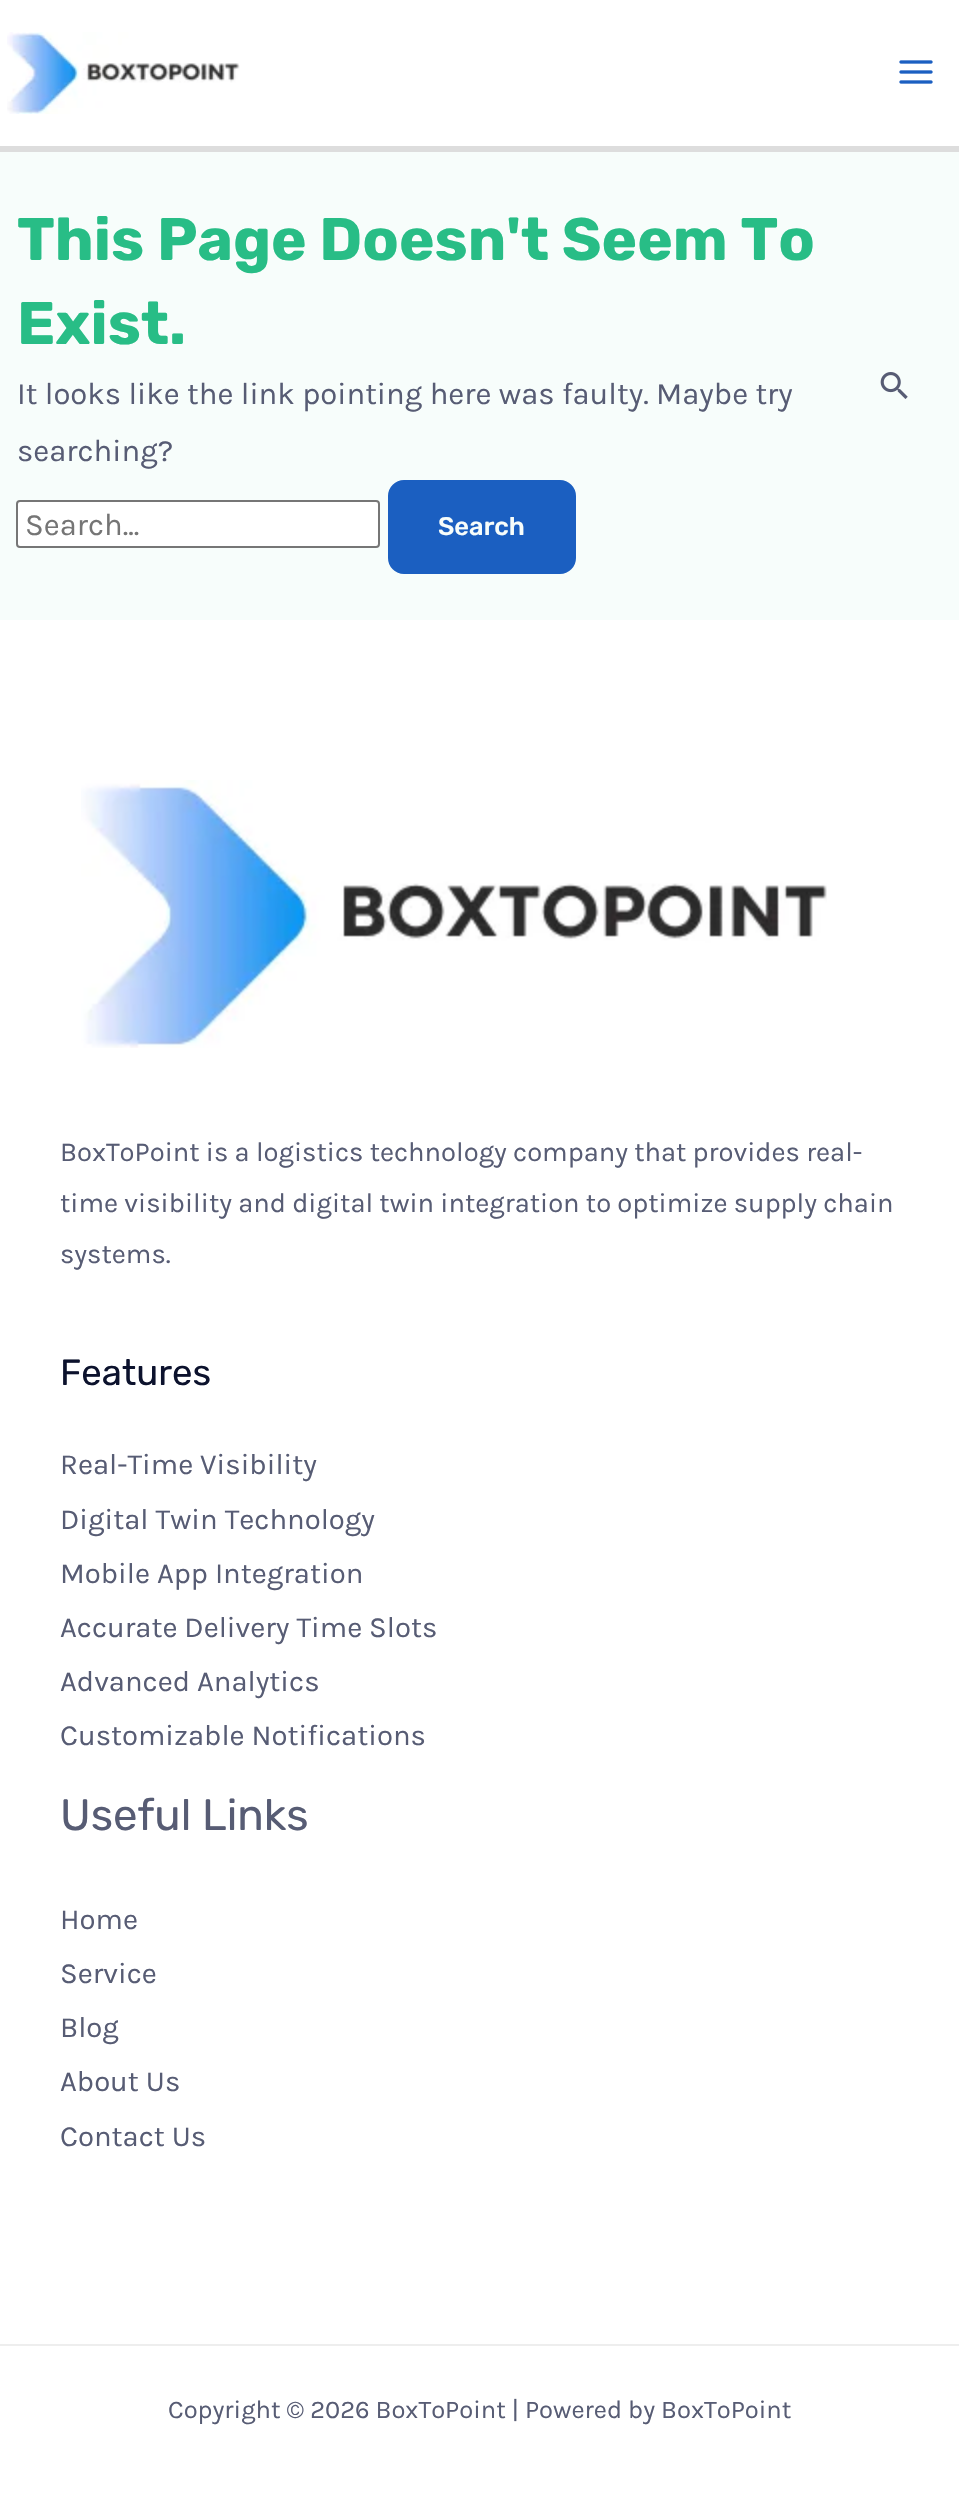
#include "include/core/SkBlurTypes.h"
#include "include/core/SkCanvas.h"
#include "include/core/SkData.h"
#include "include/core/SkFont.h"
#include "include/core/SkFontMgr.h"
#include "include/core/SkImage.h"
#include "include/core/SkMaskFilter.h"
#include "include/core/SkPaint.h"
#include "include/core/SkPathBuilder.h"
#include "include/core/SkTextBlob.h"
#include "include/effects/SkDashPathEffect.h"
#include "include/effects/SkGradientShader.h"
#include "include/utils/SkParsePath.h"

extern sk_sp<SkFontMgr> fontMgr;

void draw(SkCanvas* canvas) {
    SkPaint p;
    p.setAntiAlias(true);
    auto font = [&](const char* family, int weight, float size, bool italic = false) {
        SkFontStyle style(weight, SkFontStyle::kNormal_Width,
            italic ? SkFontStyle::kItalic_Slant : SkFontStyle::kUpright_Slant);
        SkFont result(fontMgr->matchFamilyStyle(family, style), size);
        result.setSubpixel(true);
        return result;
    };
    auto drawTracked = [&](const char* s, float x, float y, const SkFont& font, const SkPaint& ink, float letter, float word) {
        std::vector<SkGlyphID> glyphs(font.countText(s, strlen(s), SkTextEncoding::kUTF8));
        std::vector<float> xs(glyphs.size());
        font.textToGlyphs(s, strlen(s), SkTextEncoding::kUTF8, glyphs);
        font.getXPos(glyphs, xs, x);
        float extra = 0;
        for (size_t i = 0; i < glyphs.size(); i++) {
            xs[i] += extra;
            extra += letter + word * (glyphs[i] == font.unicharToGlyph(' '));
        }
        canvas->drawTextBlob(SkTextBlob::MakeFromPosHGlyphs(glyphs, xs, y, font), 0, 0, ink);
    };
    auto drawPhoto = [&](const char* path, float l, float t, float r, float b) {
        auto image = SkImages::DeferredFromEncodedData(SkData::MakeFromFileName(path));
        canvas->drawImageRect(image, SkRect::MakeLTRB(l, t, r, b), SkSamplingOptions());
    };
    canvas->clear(0xFFF7FDFB);
    p.setColor(0xFFFFFFFF);
    canvas->drawRect(SkRect::MakeLTRB(0, 0, 959, 146), p);
    p.setColor(0xFFDDDDDD);
    canvas->drawRect(SkRect::MakeLTRB(0, 146, 959, 152), p);
    drawPhoto("media/1.png", 7, 32, 240, 114);
    drawPhoto("media/2.png", 899, 60, 933, 84);
    auto font1 = font("Rubik", 700, 60);
    p.setColor(0xFF28BD86);
    canvas->drawString("This Page Doesn't Seem To", 17, 260, font1, p);
    canvas->drawString("Exist.", 17, 344, font1, p);
    auto font2 = font("Karla", 400, 31);
    p.setColor(0xFF575C74);
    canvas->drawString("It looks like the link pointing here was faulty. Maybe try", 17, 404, font2, p);
    canvas->drawString("searching?", 17, 461, font2, p);
    drawPhoto("media/3.png", 880, 372, 908, 399);
    p.setColor(0xFFFFFFFF);
    canvas->drawRoundRect(SkRect::MakeLTRB(17, 501, 379, 547), 3, 3, p);
    p.setStyle(SkPaint::kStroke_Style);
    p.setStrokeWidth(2);
    p.setColor(0xFF767676);
    canvas->drawRoundRect(SkRect::MakeLTRB(17, 501, 379, 547), 3, 3, p);
    p.setStyle(SkPaint::kFill_Style);
    p.setColor(0xFF757575);
    canvas->drawString("Search...", 25, 535, font2, p);
    p.setColor(0xFF1B5FC1);
    canvas->drawRoundRect(SkRect::MakeLTRB(389, 481, 575, 573), 15, 15, p);
    p.setStyle(SkPaint::kStroke_Style);
    canvas->drawRoundRect(SkRect::MakeLTRB(389, 481, 575, 573), 15, 15, p);
    auto font3 = font("Rubik", 500, 25.5f);
    p.setStyle(SkPaint::kFill_Style);
    p.setColor(0xFFF7FDFB);
    canvas->drawString("Search", 438, 535, font3, p);
    p.setColor(0xFFFFFFFF);
    canvas->drawRect(SkRect::MakeLTRB(0, 620, 959, 2344), p);
    drawPhoto("media/4.png", 81, 780, 827, 1048);
    auto font4 = font("Karla", 400, 27.35f);
    p.setColor(0xFF575C74);
    drawTracked("BoxToPoint is a logistics technology company that provides real-", 60, 1161, font4, p, 0, -0.25f);
    drawTracked("time visibility and digital twin integration to optimize supply chain", 60, 1212, font4, p, 0, -0.25f);
    canvas->drawString("systems.", 60, 1263, font4, p);
    auto font5 = font("Rubik", 400, 36.5f);
    p.setColor(0xFF0C122D);
    canvas->drawString("Features", 60, 1385, font5, p);
    auto font6 = font("Karla", 400, 29.25f);
    p.setColor(0xFF575C74);
    {
        const struct { const char* s; float x, y; } items[] = {
            {"Real-Time Visibility", 60, 1474},
            {"Digital Twin Technology", 60, 1529},
            {"Mobile App Integration", 60, 1583},
            {"Accurate Delivery Time Slots", 60, 1637},
            {"Advanced Analytics", 60, 1691},
            {"Customizable Notifications", 60, 1745},
        };
        for (auto [s, x, y] : items) {
            canvas->drawString(s, x, y, font6, p);
        }
    }
    auto font7 = font("Rubik", 400, 43.75f);
    canvas->drawString("Useful Links", 60, 1830, font7, p);
    {
        const struct { const char* s; float x, y; } items[] = {
            {"Home", 60, 1929},
            {"Service", 60, 1983},
            {"Blog", 60, 2037},
            {"About Us", 60, 2091},
            {"Contact Us", 60, 2146},
        };
        for (auto [s, x, y] : items) {
            canvas->drawString(s, x, y, font6, p);
        }
    }
    p.setColor(0xFFFFFFFF);
    canvas->drawRect(SkRect::MakeLTRB(0, 2346, 959, 2513), p);
    p.setColor(0xFFEEEEEE);
    canvas->drawRect(SkRect::MakeLTRB(0, 2344, 959, 2346), p);
    auto font8 = font("Karla", 400, 25.5f);
    p.setColor(0xFF575C74);
    canvas->drawString("Copyright © 2026 BoxToPoint | Powered by BoxToPoint", 168, 2418, font8, p);
}
